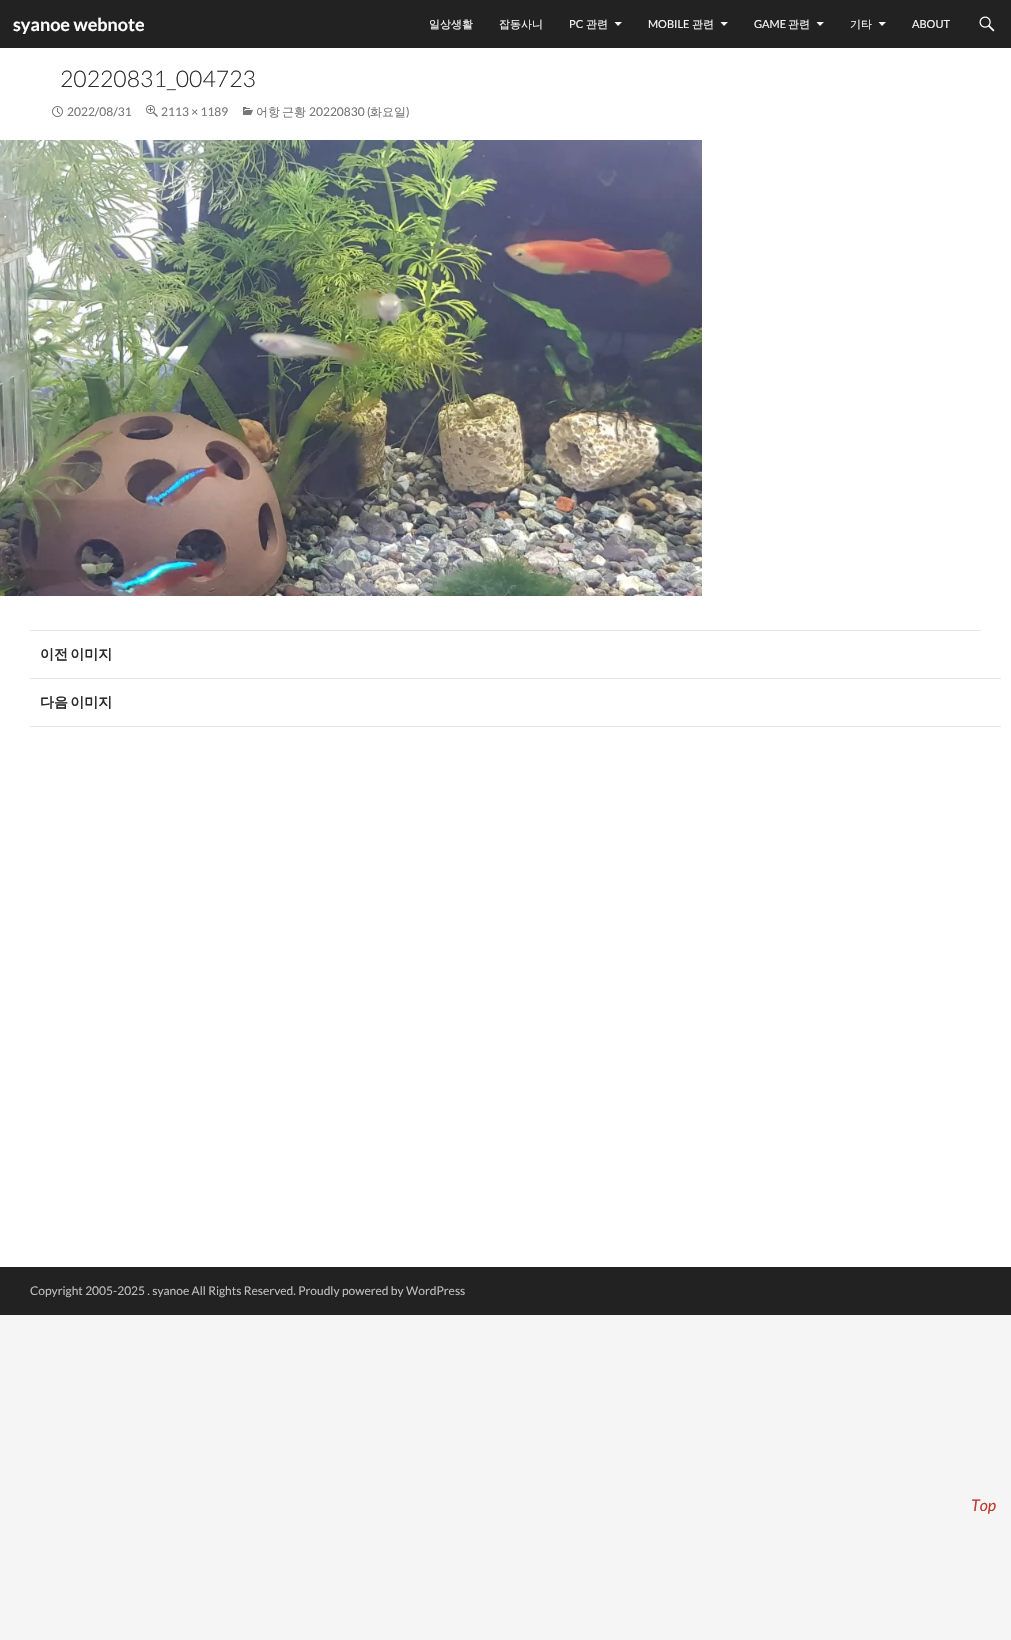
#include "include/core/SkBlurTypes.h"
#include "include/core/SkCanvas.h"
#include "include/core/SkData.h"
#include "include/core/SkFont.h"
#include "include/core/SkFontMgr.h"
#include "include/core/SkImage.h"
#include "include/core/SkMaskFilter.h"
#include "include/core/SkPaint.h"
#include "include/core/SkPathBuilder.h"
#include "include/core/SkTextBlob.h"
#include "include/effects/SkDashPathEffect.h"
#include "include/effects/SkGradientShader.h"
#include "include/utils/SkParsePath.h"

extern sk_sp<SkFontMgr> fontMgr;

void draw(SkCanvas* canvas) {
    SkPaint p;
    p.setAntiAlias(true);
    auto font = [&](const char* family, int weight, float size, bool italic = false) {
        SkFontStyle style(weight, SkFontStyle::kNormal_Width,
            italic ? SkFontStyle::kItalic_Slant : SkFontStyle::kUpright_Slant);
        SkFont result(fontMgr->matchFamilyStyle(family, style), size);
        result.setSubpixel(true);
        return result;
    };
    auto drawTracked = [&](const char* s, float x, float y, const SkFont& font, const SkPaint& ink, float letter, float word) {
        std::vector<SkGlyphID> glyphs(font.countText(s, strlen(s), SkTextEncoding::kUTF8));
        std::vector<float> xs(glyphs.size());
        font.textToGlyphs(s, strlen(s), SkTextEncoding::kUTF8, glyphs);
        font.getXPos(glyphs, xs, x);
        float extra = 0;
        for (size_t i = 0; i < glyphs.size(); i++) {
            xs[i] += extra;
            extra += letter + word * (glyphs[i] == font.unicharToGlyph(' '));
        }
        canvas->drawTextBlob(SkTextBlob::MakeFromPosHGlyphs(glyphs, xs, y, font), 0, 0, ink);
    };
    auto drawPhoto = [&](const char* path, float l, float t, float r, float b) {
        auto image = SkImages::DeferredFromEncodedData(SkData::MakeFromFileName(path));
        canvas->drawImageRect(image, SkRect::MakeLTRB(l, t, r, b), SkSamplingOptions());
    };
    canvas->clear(0xFFF5F5F5);
    p.setColor(0xFFFFFFFF);
    canvas->drawRect(SkRect::MakeLTRB(0, 48, 1011, 1267), p);
    p.setColor(0xFF222222);
    canvas->drawRect(SkRect::MakeLTRB(0, 0, 1011, 48), p);
    auto font1 = font("Lato", 700, 18);
    p.setColor(0xFFFFFFFF);
    canvas->drawString("syanoe webnote", 13, 31, font1, p);
    auto font2 = font("WenQuanYi Zen Hei", 500, 11);
    p.setColor(0xFFF6F6F6);
    canvas->drawString("일상생활", 429, 28, font2, p);
    canvas->drawString("잡동사니", 499, 28, font2, p);
    auto font3 = font("Lato", 400, 11);
    canvas->drawString("PC", 569, 28, font3, p);
    canvas->drawString("관련", 586, 28, font2, p);
    canvas->drawPath(SkPathBuilder().moveTo(614.5f, 22).lineTo(622, 22).lineTo(618, 26).close().detach(), p);
    canvas->drawString("MOBILE", 648, 28, font3, p);
    canvas->drawString("관련", 692, 28, font2, p);
    canvas->drawPath(SkPathBuilder().moveTo(720.5f, 22).lineTo(728, 22).lineTo(724, 26).close().detach(), p);
    canvas->drawString("GAME", 754, 28, font3, p);
    canvas->drawString("관련", 788, 28, font2, p);
    canvas->drawPath(SkPathBuilder().moveTo(816.5f, 22).lineTo(824, 22).lineTo(820, 26).close().detach(), p);
    canvas->drawString("기타", 850, 28, font2, p);
    canvas->drawPath(SkPathBuilder().moveTo(878.5f, 22).lineTo(886, 22).lineTo(882, 26).close().detach(), p);
    canvas->drawString("ABOUT", 912, 28, font3, p);
    drawPhoto("media/1.png", 979, 16, 995, 32);
    auto font4 = font("Lato", 300, 23);
    p.setColor(0xFF2B2B2B);
    canvas->drawString("20220831_004723", 60, 87, font4, p);
    drawPhoto("media/2.png", 52, 106, 63, 117);
    auto font5 = font("Lato", 400, 12);
    p.setColor(0xFF767676);
    canvas->drawString("2022/08/31", 67, 116, font5, p);
    drawPhoto("media/3.png", 146, 105, 158, 117);
    canvas->drawString("2113 × 1189", 161, 116, font5, p);
    drawPhoto("media/4.png", 243, 107, 253, 115);
    auto font6 = font("WenQuanYi Zen Hei", 500, 12);
    canvas->drawString("어항", 256, 116, font6, p);
    canvas->drawString("근황", 282, 116, font6, p);
    canvas->drawString("20220830 (", 309, 116, font5, p);
    canvas->drawString("화요일", 370, 116, font6, p);
    canvas->drawString(")", 406, 116, font5, p);
    drawPhoto("media/5.png", 0, 140, 702, 596);
    p.setColor(0xFFE6E6E6);
    canvas->drawRect(SkRect::MakeLTRB(30, 630, 981, 631), p);
    canvas->drawRect(SkRect::MakeLTRB(30, 678, 1001, 679), p);
    auto font7 = font("WenQuanYi Zen Hei", 700, 14);
    p.setColor(0xFF2B2B2B);
    drawTracked("이전 이미지", 40, 659, font7, p, 0, -2);
    p.setColor(0xFFE6E6E6);
    canvas->drawRect(SkRect::MakeLTRB(30, 726, 1001, 727), p);
    p.setColor(0xFF2B2B2B);
    drawTracked("다음 이미지", 40, 707, font7, p, 0, -2);
    auto font8 = font("Lato", 400, 16, true);
    p.setColor(0xFFC0392B);
    canvas->drawString("Top", 971, 1511, font8, p);
    p.setColor(0xFF222222);
    canvas->drawRect(SkRect::MakeLTRB(0, 1267, 1011, 1315), p);
    p.setColor(0xFFBDBDBD);
    canvas->drawString("Copyright 2005-2025 . syanoe All Rights Reserved. Proudly powered by WordPress", 30, 1295, font5, p);
}
